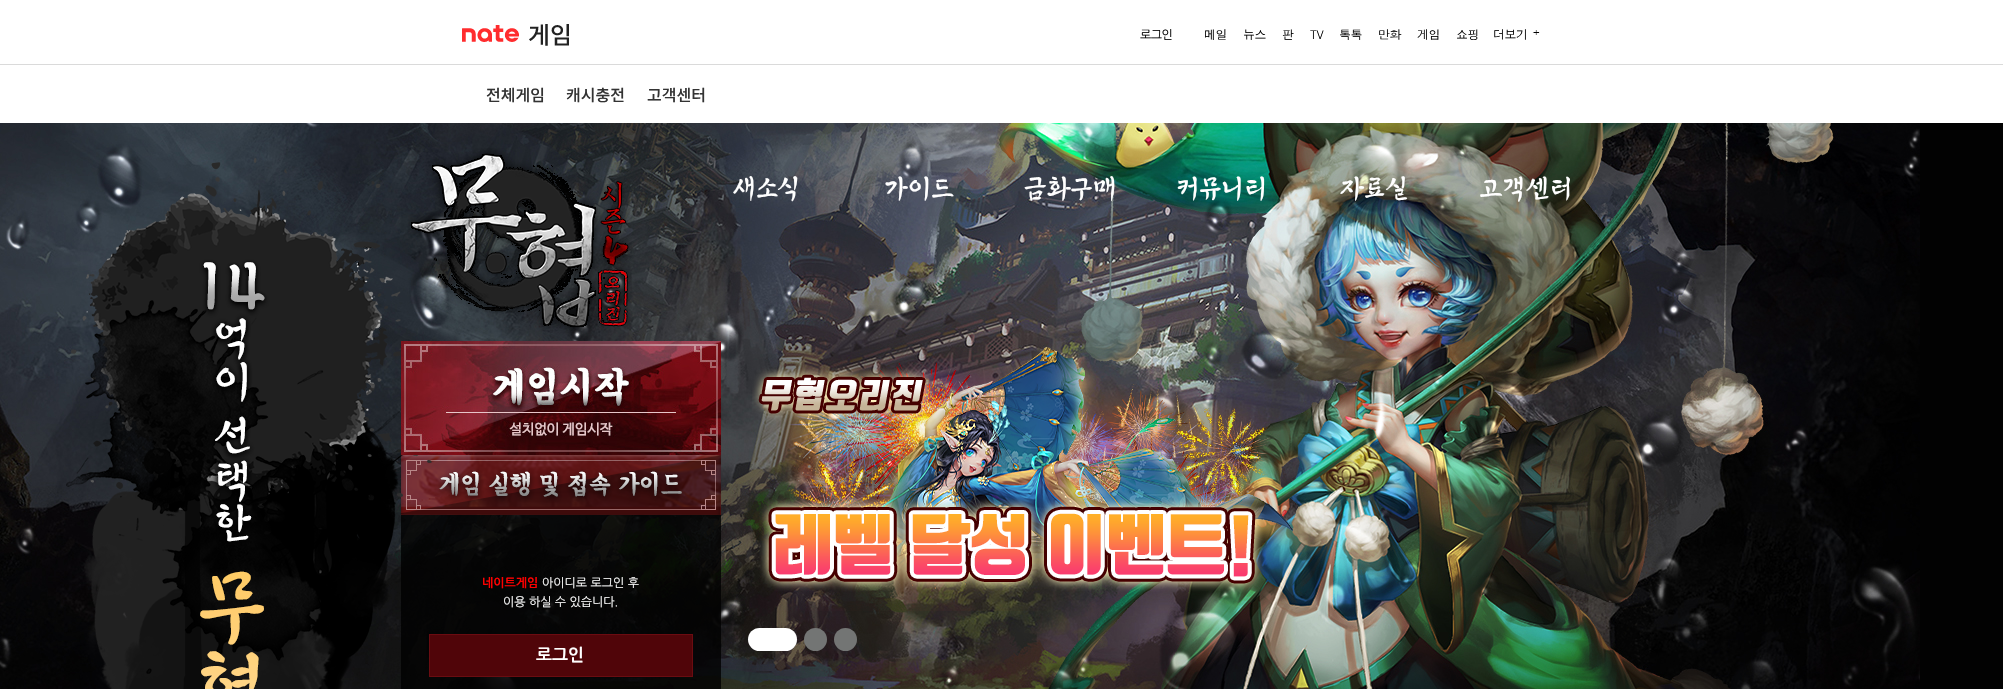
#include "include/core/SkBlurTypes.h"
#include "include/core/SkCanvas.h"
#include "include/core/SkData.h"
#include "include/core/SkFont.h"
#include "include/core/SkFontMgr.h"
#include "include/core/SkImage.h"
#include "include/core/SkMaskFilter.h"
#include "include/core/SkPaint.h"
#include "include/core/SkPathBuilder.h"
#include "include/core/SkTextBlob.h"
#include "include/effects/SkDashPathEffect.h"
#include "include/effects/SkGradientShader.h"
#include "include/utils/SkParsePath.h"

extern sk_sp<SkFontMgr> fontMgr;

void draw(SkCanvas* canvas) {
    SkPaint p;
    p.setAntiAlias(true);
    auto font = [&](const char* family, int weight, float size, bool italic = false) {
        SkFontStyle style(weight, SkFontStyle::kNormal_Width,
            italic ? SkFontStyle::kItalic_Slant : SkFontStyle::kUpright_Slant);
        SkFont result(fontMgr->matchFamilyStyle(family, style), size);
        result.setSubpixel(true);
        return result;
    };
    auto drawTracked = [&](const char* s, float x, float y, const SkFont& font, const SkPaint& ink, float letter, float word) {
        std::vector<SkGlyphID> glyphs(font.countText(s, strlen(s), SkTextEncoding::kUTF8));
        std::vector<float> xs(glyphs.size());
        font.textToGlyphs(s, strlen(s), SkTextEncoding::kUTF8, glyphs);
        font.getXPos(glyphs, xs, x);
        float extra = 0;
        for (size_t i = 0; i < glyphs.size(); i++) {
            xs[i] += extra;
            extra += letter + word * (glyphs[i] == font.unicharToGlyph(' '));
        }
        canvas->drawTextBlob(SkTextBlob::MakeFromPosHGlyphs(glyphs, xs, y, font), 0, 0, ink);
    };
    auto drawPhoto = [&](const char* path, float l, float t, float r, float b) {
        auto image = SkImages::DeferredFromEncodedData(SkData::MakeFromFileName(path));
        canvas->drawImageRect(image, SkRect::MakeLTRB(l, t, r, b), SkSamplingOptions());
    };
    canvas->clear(0xFF020202);
    drawPhoto("media/1.png", 0, 123, 1920, 689);
    p.setColor(0xFFFFFFFF);
    canvas->drawRect(SkRect::MakeLTRB(0, 0, 2003, 123), p);
    p.setColor(0xFFDADADA);
    canvas->drawRect(SkRect::MakeLTRB(0, 64, 2003, 65), p);
    drawPhoto("media/2.png", 462, 25, 519, 42);
    drawPhoto("media/3.png", 529, 24, 569, 46);
    auto font1 = font("NanumGothic", 400, 12);
    p.setColor(0xFF000000);
    drawTracked("로그인", 1140, 39, font1, p, -0.5f, 0);
    auto font2 = font("Dotum", 400, 12);
    {
        const struct { const char* s; float x, y; } items[] = {
            {"메일", 1204, 39},
            {"뉴스", 1243, 39},
            {"판", 1282, 39},
            {"TV", 1310, 39},
            {"톡톡", 1339, 39},
            {"만화", 1378, 39},
            {"게임", 1417, 39},
            {"쇼핑", 1456, 39},
            {"더보기", 1493, 39},
        };
        for (auto [s, x, y] : items) {
            drawTracked(s, x, y, font2, p, -0.5f, 0);
        }
    }
    drawPhoto("media/4.png", 1532, 30, 1540, 35);
    auto font3 = font("Noto Sans KR", 500, 16);
    p.setColor(0xFF333333);
    {
        const struct { const char* s; float x, y; } items[] = {
            {"전체게임", 486, 101},
            {"캐시충전", 566, 101},
            {"고객센터", 647, 101},
        };
        for (auto [s, x, y] : items) {
            canvas->drawString(s, x, y, font3, p);
        }
    }
    drawPhoto("media/8.png", 401, 455, 721, 515);
    p.setColor(0xCC000000);
    canvas->drawRect(SkRect::MakeLTRB(401, 515, 721, 689), p);
    p.setColor(0xFF500509);
    canvas->drawRect(SkRect::MakeLTRB(429.5f, 634.5f, 692.5f, 676.5f), p);
    p.setStyle(SkPaint::kStroke_Style);
    p.setStrokeWidth(1);
    p.setColor(0xFF6B0C11);
    canvas->drawRect(SkRect::MakeLTRB(429.5f, 634.5f, 692.5f, 676.5f), p);
    drawPhoto("media/6.png", 66, 158, 432, 689);
    drawPhoto("media/5.png", 408, 148, 632, 336);
    auto font4 = font("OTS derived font", 500, 26.5f);
    p.setStyle(SkPaint::kFill_Style);
    p.setColor(0xFFFFFFFF);
    {
        const struct { const char* s; float x, y; } items[] = {
            {"새소식", 732, 196},
            {"가이드", 884, 196},
            {"금화구매", 1024, 196},
            {"커뮤니티", 1176, 196},
            {"자료실", 1340, 196},
            {"고객센터", 1480, 196},
        };
        for (auto [s, x, y] : items) {
            canvas->drawString(s, x, y, font4, p);
        }
    }
    drawPhoto("media/7.png", 401, 341, 721, 455);
    drawPhoto("media/9.png", 752, 347, 1299, 611);
    canvas->drawRoundRect(SkRect::MakeLTRB(748, 628, 797, 651), 11.5f, 11.5f, p);
    p.setColor(0xFF737574);
    canvas->drawCircle(815.5f, 639.5f, 11.5f, p);
    canvas->drawCircle(845.5f, 639.5f, 11.5f, p);
    auto font5 = font("NanumGothic", 700, 12);
    p.setColor(0xFFFF0000);
    canvas->drawString("네이트게임", 482, 587, font5, p);
    p.setColor(0xFFFFFFFF);
    canvas->drawString("아이디로 로그인 후", 542, 587, font1, p);
    canvas->drawString("이용 하실 수 있습니다.", 503, 606, font1, p);
    auto font6 = font("NanumGothic", 700, 17);
    canvas->drawString("로그인", 536, 661, font6, p);
}
